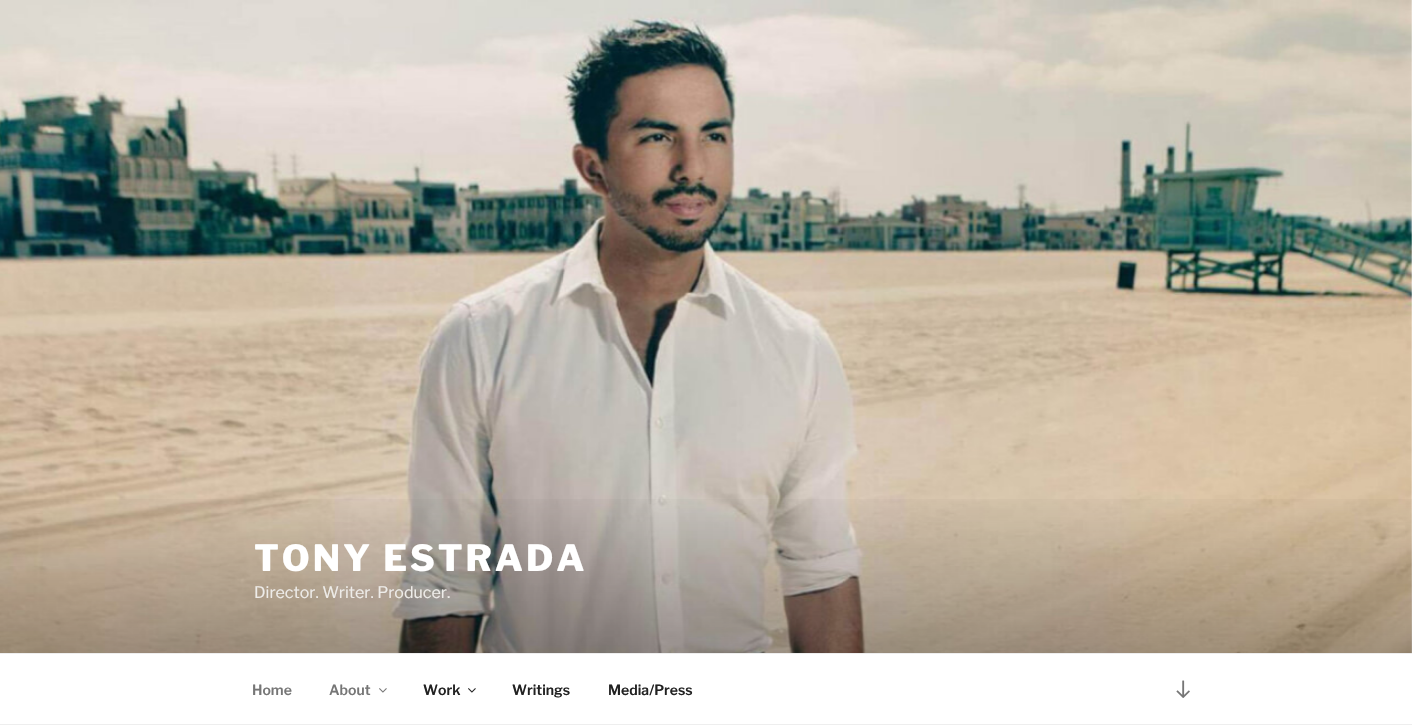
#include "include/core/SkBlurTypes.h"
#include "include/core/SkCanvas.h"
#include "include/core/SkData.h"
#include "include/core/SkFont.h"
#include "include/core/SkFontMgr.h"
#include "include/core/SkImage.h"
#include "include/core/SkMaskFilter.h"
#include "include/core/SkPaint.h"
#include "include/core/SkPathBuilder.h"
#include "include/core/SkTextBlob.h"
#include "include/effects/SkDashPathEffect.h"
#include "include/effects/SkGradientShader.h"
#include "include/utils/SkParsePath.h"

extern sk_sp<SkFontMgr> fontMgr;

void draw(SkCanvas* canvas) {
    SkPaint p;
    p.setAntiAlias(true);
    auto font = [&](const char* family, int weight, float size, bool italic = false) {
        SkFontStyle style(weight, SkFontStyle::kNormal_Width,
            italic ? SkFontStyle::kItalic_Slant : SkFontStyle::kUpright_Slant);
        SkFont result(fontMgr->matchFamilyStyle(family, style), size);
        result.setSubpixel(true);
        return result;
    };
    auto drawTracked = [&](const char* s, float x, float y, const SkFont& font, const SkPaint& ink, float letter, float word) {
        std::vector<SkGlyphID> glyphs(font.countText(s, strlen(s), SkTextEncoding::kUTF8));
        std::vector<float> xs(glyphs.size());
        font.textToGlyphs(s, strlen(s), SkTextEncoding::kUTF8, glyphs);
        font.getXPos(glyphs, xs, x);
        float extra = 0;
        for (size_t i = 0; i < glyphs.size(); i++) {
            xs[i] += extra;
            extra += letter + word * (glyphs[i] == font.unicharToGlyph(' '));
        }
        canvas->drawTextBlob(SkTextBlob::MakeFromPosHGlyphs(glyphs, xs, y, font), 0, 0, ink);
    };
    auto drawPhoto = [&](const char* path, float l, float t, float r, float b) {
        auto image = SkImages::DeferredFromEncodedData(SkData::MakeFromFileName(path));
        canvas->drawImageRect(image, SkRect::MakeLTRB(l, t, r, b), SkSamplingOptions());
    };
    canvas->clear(0xFFFFFFFF);
    drawPhoto("media/1.png", 0, 0, 1412, 653);
    {
        const SkColor colors[] = {0x00000000, 0x4D000000, 0x4D000000};
        const float stops[] = {0, 0.75f, 1};
        const SkPoint ends[] = {{706, 486}, {706, 725}};
        p.setShader(SkGradientShader::MakeLinear(ends, colors, stops, 3, SkTileMode::kClamp));
        p.setAlpha(255);
    }
    canvas->drawRect(SkRect::MakeLTRB(0, 499, 1412, 653), p);
    auto font1 = font("Libre Franklin", 100, 36);
    p.setShader(nullptr);
    p.setColor(0xFFFFFFFF);
    drawTracked("TONY ESTRADA", 254, 571, font1, p, 2.9f, 0);
    auto font2 = font("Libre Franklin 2", 100, 16);
    p.setColor(0xFFEEECE9);
    canvas->drawString("Director. Writer. Producer.", 254, 598, font2, p);
    p.setColor(0xFFEEEEEE);
    canvas->drawRect(SkRect::MakeLTRB(0, 653, 1412, 654), p);
    canvas->drawRect(SkRect::MakeLTRB(0, 724, 1412, 725), p);
    auto font3 = font("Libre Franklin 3", 100, 14);
    p.setColor(0xFF767676);
    canvas->drawString("Home", 252, 695, font3, p);
    canvas->drawString("About", 329, 695, font3, p);
    drawPhoto("media/2.png", 379, 688, 387, 693);
    p.setColor(0xFF222222);
    canvas->drawString("Work", 423, 695, font3, p);
    drawPhoto("media/3.png", 468, 688, 476, 693);
    canvas->drawString("Writings", 512, 695, font3, p);
    canvas->drawString("Media/Press", 608, 695, font3, p);
    drawPhoto("media/4.png", 1176, 680, 1190, 698);
}
